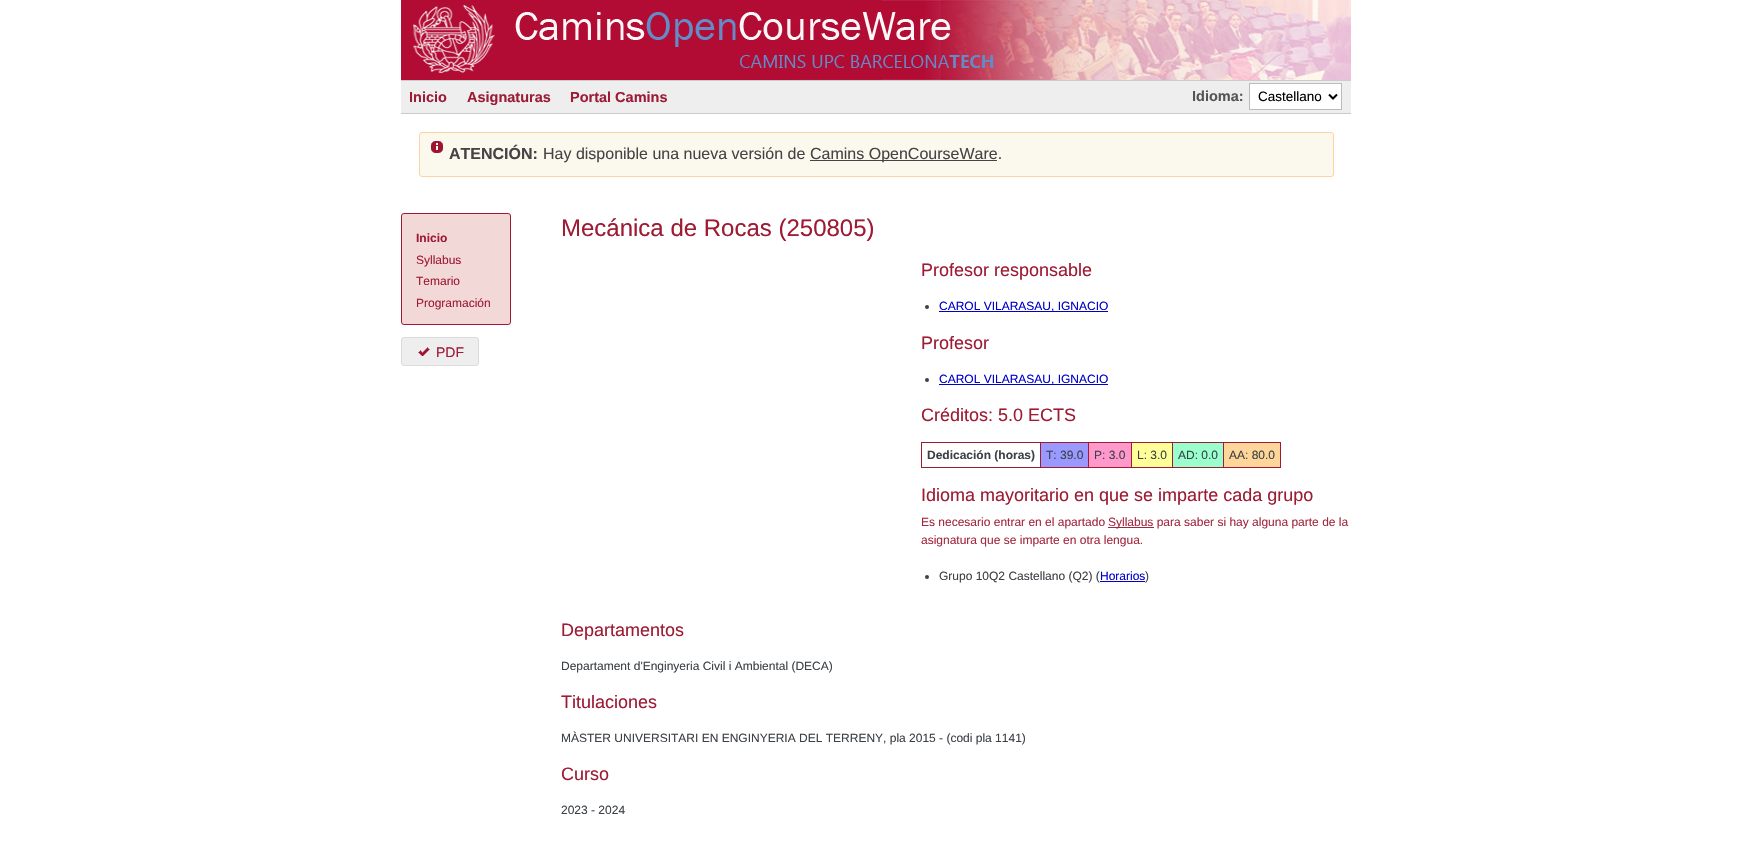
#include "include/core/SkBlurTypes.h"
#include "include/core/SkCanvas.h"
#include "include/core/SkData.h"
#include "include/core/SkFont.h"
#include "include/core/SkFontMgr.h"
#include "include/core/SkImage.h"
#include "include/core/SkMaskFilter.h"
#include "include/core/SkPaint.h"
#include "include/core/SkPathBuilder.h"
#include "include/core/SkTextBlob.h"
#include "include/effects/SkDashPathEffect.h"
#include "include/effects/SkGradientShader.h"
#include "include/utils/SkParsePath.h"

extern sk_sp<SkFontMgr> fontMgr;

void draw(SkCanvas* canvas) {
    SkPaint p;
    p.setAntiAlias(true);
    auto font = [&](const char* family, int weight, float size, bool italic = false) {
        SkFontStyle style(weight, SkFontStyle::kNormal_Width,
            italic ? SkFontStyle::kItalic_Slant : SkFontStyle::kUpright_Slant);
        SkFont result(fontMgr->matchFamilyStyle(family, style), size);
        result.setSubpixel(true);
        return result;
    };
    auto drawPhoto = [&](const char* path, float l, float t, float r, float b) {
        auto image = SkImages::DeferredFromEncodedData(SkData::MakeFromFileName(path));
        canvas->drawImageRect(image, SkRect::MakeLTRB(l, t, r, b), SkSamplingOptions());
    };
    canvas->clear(0xFFFFFFFF);
    drawPhoto("media/1.png", 401, 0, 1351, 80);
    {
        const struct { float l, t, r, b; SkColor color; } items[] = {
            {401, 81, 1351, 113, 0xFFEEEEEE},
            {401, 80, 1351, 81, 0xFFCCCCCC},
            {401, 113, 1351, 114, 0xFFCCCCCC},
        };
        for (auto [l, t, r, b, color] : items) {
            p.setColor(color);
            canvas->drawRect(SkRect::MakeLTRB(l, t, r, b), p);
        }
    }
    auto font1 = font("Liberation Sans", 700, 14.5f);
    p.setColor(0xFF9E1B34);
    {
        const struct { const char* s; float x, y; } items[] = {
            {"Inicio", 409, 102},
            {"Asignaturas", 467, 102},
            {"Portal Camins", 570, 102},
        };
        for (auto [s, x, y] : items) {
            canvas->drawString(s, x, y, font1, p);
        }
    }
    p.setColor(0xFF555555);
    canvas->drawString("Idioma:", 1192, 101, font1, p);
    p.setColor(0xFFFFFFFF);
    canvas->drawRect(SkRect::MakeLTRB(1249.5f, 83.5f, 1341.5f, 109.5f), p);
    p.setStyle(SkPaint::kStroke_Style);
    p.setStrokeWidth(1);
    p.setColor(0xFFBBBBBB);
    canvas->drawRect(SkRect::MakeLTRB(1249.5f, 83.5f, 1341.5f, 109.5f), p);
    p.setStrokeWidth(2);
    p.setColor(0xFF000000);
    canvas->drawPath(SkPathBuilder().moveTo(1329, 94.5f).lineTo(1333, 98.5f).lineTo(1337, 94.5f).detach(), p);
    auto font2 = font("Liberation Sans", 400, 13.5f);
    p.setStyle(SkPaint::kFill_Style);
    canvas->drawString("Castellano", 1258, 101, font2, p);
    p.setColor(0xFFFBF8EE);
    canvas->drawRoundRect(SkRect::MakeLTRB(419.5f, 132.5f, 1333.5f, 176.5f), 2.5f, 2.5f, p);
    p.setStyle(SkPaint::kStroke_Style);
    p.setStrokeWidth(1);
    p.setColor(0xFFFCD3A1);
    canvas->drawRoundRect(SkRect::MakeLTRB(419.5f, 132.5f, 1333.5f, 176.5f), 2.5f, 2.5f, p);
    drawPhoto("media/2.png", 431, 141, 443, 153);
    auto font3 = font("Liberation Sans", 700, 16);
    p.setStyle(SkPaint::kFill_Style);
    p.setColor(0xFF444444);
    canvas->drawString("ATENCIÓN:", 449, 159, font3, p);
    auto font4 = font("Liberation Sans", 400, 16);
    canvas->drawString("Hay disponible una nueva versión de", 543, 159, font4, p);
    canvas->drawRect(SkRect::MakeLTRB(810, 160, 997, 161), p);
    canvas->drawString("Camins OpenCourseWare.", 810, 159, font4, p);
    p.setColor(0xFFF3D8D8);
    canvas->drawRoundRect(SkRect::MakeLTRB(401.5f, 213.5f, 510.5f, 324.5f), 2.5f, 2.5f, p);
    p.setStyle(SkPaint::kStroke_Style);
    p.setColor(0xFF9E1B34);
    canvas->drawRoundRect(SkRect::MakeLTRB(401.5f, 213.5f, 510.5f, 324.5f), 2.5f, 2.5f, p);
    auto font5 = font("Liberation Sans", 700, 12);
    p.setStyle(SkPaint::kFill_Style);
    canvas->drawString("Inicio", 416, 242, font5, p);
    auto font6 = font("Liberation Sans", 400, 12);
    {
        const struct { const char* s; float x, y; } items[] = {
            {"Syllabus", 416, 264},
            {"Temario", 416, 285},
            {"Programación", 416, 307},
        };
        for (auto [s, x, y] : items) {
            canvas->drawString(s, x, y, font6, p);
        }
    }
    p.setColor(0xFFEEEEEE);
    canvas->drawRoundRect(SkRect::MakeLTRB(401.5f, 337.5f, 478.5f, 365.5f), 2.5f, 2.5f, p);
    p.setStyle(SkPaint::kStroke_Style);
    p.setColor(0xFFD8DCDF);
    canvas->drawRoundRect(SkRect::MakeLTRB(401.5f, 337.5f, 478.5f, 365.5f), 2.5f, 2.5f, p);
    drawPhoto("media/3.png", 418, 347, 430, 356);
    auto font7 = font("Liberation Sans", 400, 14);
    p.setStyle(SkPaint::kFill_Style);
    p.setColor(0xFF9E1B34);
    canvas->drawString("PDF", 436, 357, font7, p);
    auto font8 = font("Liberation Sans", 400, 24);
    canvas->drawString("Mecánica de Rocas (250805)", 561, 236, font8, p);
    auto font9 = font("Liberation Sans", 400, 18);
    canvas->drawString("Profesor responsable", 921, 276, font9, p);
    p.setColor(0xFF3C4146);
    canvas->drawCircle(927, 307, 2, p);
    p.setColor(0xFF0000CC);
    canvas->drawRect(SkRect::MakeLTRB(939, 311, 1108, 312), p);
    canvas->drawString("CAROL VILARASAU, IGNACIO", 939, 310, font6, p);
    p.setColor(0xFF9E1B34);
    canvas->drawString("Profesor", 921, 349, font9, p);
    p.setColor(0xFF3C4146);
    canvas->drawCircle(927, 380, 2, p);
    p.setColor(0xFF0000CC);
    canvas->drawRect(SkRect::MakeLTRB(939, 384, 1108, 385), p);
    canvas->drawString("CAROL VILARASAU, IGNACIO", 939, 383, font6, p);
    p.setColor(0xFF9E1B34);
    canvas->drawString("Créditos: 5.0 ECTS", 921, 421, font9, p);
    {
        const struct { float l, t, r, b; SkColor color; } items[] = {
            {1223, 442, 1281, 443, 0xFF9E1B34},
            {1280, 442, 1281, 468, 0xFF9E1B34},
            {1223, 467, 1281, 468, 0xFF9E1B34},
            {1223, 442, 1224, 468, 0xFF9E1B34},
            {1172, 442, 1224, 443, 0xFF9E1B34},
            {1172, 467, 1224, 468, 0xFF9E1B34},
            {1172, 442, 1173, 468, 0xFF9E1B34},
            {1131, 442, 1173, 443, 0xFF9E1B34},
            {1131, 467, 1173, 468, 0xFF9E1B34},
            {1131, 442, 1132, 468, 0xFF9E1B34},
            {1088, 442, 1132, 443, 0xFF9E1B34},
            {1088, 467, 1132, 468, 0xFF9E1B34},
            {1088, 442, 1089, 468, 0xFF9E1B34},
            {1040, 442, 1089, 443, 0xFF9E1B34},
            {1040, 467, 1089, 468, 0xFF9E1B34},
            {1040, 442, 1041, 468, 0xFF9E1B34},
            {921, 442, 1041, 443, 0xFF9E1B34},
            {921, 467, 1041, 468, 0xFF9E1B34},
            {921, 442, 922, 468, 0xFF9E1B34},
        };
        for (auto [l, t, r, b, color] : items) {
            p.setColor(color);
            canvas->drawRect(SkRect::MakeLTRB(l, t, r, b), p);
        }
    }
    p.setColor(0xFF3C4146);
    canvas->drawString("Dedicación (horas)", 927, 459, font5, p);
    p.setColor(0xFF9999FF);
    canvas->drawRect(SkRect::MakeLTRB(1041, 443, 1088, 467), p);
    p.setColor(0xFF3C4146);
    canvas->drawString("T: 39.0", 1046, 459, font6, p);
    p.setColor(0xFFFF99CC);
    canvas->drawRect(SkRect::MakeLTRB(1089, 443, 1131, 467), p);
    p.setColor(0xFF3C4146);
    canvas->drawString("P: 3.0", 1094, 459, font6, p);
    p.setColor(0xFFFFFF99);
    canvas->drawRect(SkRect::MakeLTRB(1132, 443, 1172, 467), p);
    p.setColor(0xFF3C4146);
    canvas->drawString("L: 3.0", 1137, 459, font6, p);
    p.setColor(0xFF99FFCC);
    canvas->drawRect(SkRect::MakeLTRB(1173, 443, 1223, 467), p);
    p.setColor(0xFF3C4146);
    canvas->drawString("AD: 0.0", 1178, 459, font6, p);
    p.setColor(0xFFFFD699);
    canvas->drawRect(SkRect::MakeLTRB(1224, 443, 1280, 467), p);
    p.setColor(0xFF3C4146);
    canvas->drawString("AA: 80.0", 1229, 459, font6, p);
    p.setColor(0xFF9E1B34);
    canvas->drawString("Idioma mayoritario en que se imparte cada grupo", 921, 501, font9, p);
    p.setColor(0xFFA3283F);
    canvas->drawString("Es necesario entrar en el apartado", 921, 526, font6, p);
    canvas->drawRect(SkRect::MakeLTRB(1108, 527, 1154, 528), p);
    canvas->drawString("Syllabus para saber si hay alguna parte de la", 1108, 526, font6, p);
    canvas->drawString("asignatura que se imparte en otra lengua.", 921, 544, font6, p);
    p.setColor(0xFF3C4146);
    canvas->drawCircle(927, 577, 2, p);
    canvas->drawString("Grupo 10Q2 Castellano (Q2) (", 939, 580, font6, p);
    p.setColor(0xFF0000CC);
    canvas->drawString("Horarios", 1100, 580, font6, p);
    canvas->drawRect(SkRect::MakeLTRB(1100, 581, 1145, 582), p);
    p.setColor(0xFF3C4146);
    canvas->drawString(")", 1145, 580, font6, p);
    p.setColor(0xFF9E1B34);
    canvas->drawString("Departamentos", 561, 636, font9, p);
    p.setColor(0xFF3C4146);
    canvas->drawString("Departament d'Enginyeria Civil i Ambiental (DECA)", 561, 670, font6, p);
    p.setColor(0xFF9E1B34);
    canvas->drawString("Titulaciones", 561, 708, font9, p);
    p.setColor(0xFF3C4146);
    canvas->drawString("MÀSTER UNIVERSITARI EN ENGINYERIA DEL TERRENY, pla 2015 - (codi pla 1141)", 561, 742, font6, p);
    p.setColor(0xFF9E1B34);
    canvas->drawString("Curso", 561, 780, font9, p);
    p.setColor(0xFF3C4146);
    canvas->drawString("2023 - 2024", 561, 814, font6, p);
}
